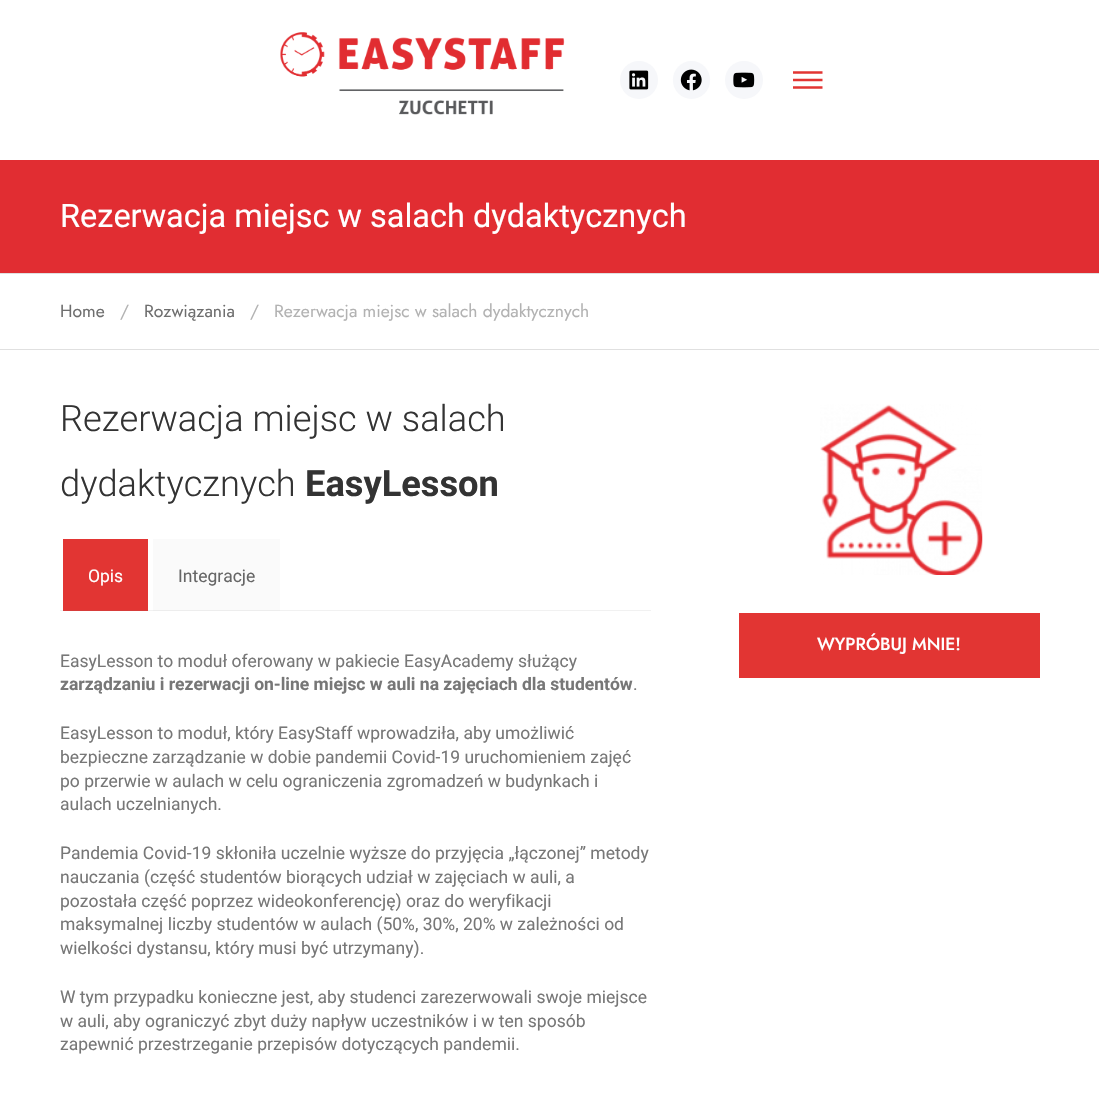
#include "include/core/SkBlurTypes.h"
#include "include/core/SkCanvas.h"
#include "include/core/SkData.h"
#include "include/core/SkFont.h"
#include "include/core/SkFontMgr.h"
#include "include/core/SkImage.h"
#include "include/core/SkMaskFilter.h"
#include "include/core/SkPaint.h"
#include "include/core/SkPathBuilder.h"
#include "include/core/SkTextBlob.h"
#include "include/effects/SkDashPathEffect.h"
#include "include/effects/SkGradientShader.h"
#include "include/utils/SkParsePath.h"

extern sk_sp<SkFontMgr> fontMgr;

void draw(SkCanvas* canvas) {
    SkPaint p;
    p.setAntiAlias(true);
    auto font = [&](const char* family, int weight, float size, bool italic = false) {
        SkFontStyle style(weight, SkFontStyle::kNormal_Width,
            italic ? SkFontStyle::kItalic_Slant : SkFontStyle::kUpright_Slant);
        SkFont result(fontMgr->matchFamilyStyle(family, style), size);
        result.setSubpixel(true);
        return result;
    };
    auto drawPhoto = [&](const char* path, float l, float t, float r, float b) {
        auto image = SkImages::DeferredFromEncodedData(SkData::MakeFromFileName(path));
        canvas->drawImageRect(image, SkRect::MakeLTRB(l, t, r, b), SkSamplingOptions());
    };
    canvas->clear(0xFFFFFFFF);
    drawPhoto("media/1.png", 280, 32, 565, 115);
    p.setColor(0xFFF6F7FA);
    canvas->drawCircle(639, 80, 19, p);
    drawPhoto("media/2.png", 629, 70, 649, 90);
    canvas->drawRoundRect(SkRect::MakeLTRB(673, 61, 710, 99), 18.5f, 18.5f, p);
    drawPhoto("media/3.png", 680, 69, 702, 91);
    canvas->drawCircle(744, 80, 19, p);
    drawPhoto("media/4.png", 733, 72, 755, 88);
    drawPhoto("media/5.png", 793, 71, 823, 89);
    p.setColor(0xFFF1F1F1);
    canvas->drawRect(SkRect::MakeLTRB(60, 610, 651, 611), p);
    p.setColor(0xFFE12D32);
    canvas->drawRect(SkRect::MakeLTRB(0, 160, 1099, 273), p);
    auto font1 = font("Roboto", 400, 32.5f);
    p.setColor(0xFFFFFFFF);
    canvas->drawString("Rezerwacja miejsc w salach dydaktycznych", 60, 227, font1, p);
    p.setColor(0xFFE0E0E0);
    canvas->drawRect(SkRect::MakeLTRB(0, 273, 1099, 274), p);
    canvas->drawRect(SkRect::MakeLTRB(0, 349, 1099, 350), p);
    auto font2 = font("Jost", 400, 17.5f);
    p.setColor(0xFF6E6E6E);
    canvas->drawString("Home", 60, 317, font2, p);
    p.setColor(0xFFB2B2B2);
    canvas->drawString("/", 120, 317, font2, p);
    p.setColor(0xFF6E6E6E);
    canvas->drawString("Rozwiązania", 144, 317, font2, p);
    p.setColor(0xFFB2B2B2);
    canvas->drawString("/", 250, 317, font2, p);
    canvas->drawString("Rezerwacja miejsc w salach dydaktycznych", 274, 317, font2, p);
    auto font3 = font("Roboto", 300, 36.25f);
    p.setColor(0xFF333333);
    canvas->drawString("Rezerwacja miejsc w salach", 60, 431, font3, p);
    canvas->drawString("dydaktycznych", 60, 496, font3, p);
    auto font4 = font("Roboto", 700, 36.25f);
    canvas->drawString("EasyLesson", 305, 496, font4, p);
    p.setColor(0xFFE23533);
    canvas->drawRect(SkRect::MakeLTRB(63, 539, 148, 610), p);
    p.setColor(0xFFD73C3A);
    canvas->drawRect(SkRect::MakeLTRB(63, 610, 148, 611), p);
    auto font5 = font("Roboto", 400, 17.5f);
    p.setColor(0xFFFFFFFF);
    canvas->drawString("Opis", 88, 582, font5, p);
    p.setColor(0xFFFAFAFA);
    canvas->drawRect(SkRect::MakeLTRB(153, 539, 280, 610), p);
    p.setColor(0xFFEDEDED);
    canvas->drawRect(SkRect::MakeLTRB(153, 610, 280, 611), p);
    p.setColor(0xFF666666);
    canvas->drawString("Integracje", 178, 582, font5, p);
    p.setColor(0xFF777777);
    canvas->drawString("EasyLesson to moduł oferowany w pakiecie EasyAcademy służący", 60, 667, font5, p);
    auto font6 = font("Roboto", 700, 17.5f);
    canvas->drawString("zarządzaniu i rezerwacji on-line miejsc w auli na zajęciach dla studentów", 60, 690, font6, p);
    {
        const struct { const char* s; float x, y; } items[] = {
            {".", 633, 690},
            {"EasyLesson to moduł, który EasyStaff wprowadziła, aby umożliwić", 60, 739},
            {"bezpieczne zarządzanie w dobie pandemii Covid-19 uruchomieniem zajęć", 60, 763},
            {"po przerwie w aulach w celu ograniczenia zgromadzeń w budynkach i", 60, 787},
            {"aulach uczelnianych.", 60, 810},
            {"Pandemia Covid-19 skłoniła uczelnie wyższe do przyjęcia „łączonej” metody", 60, 859},
            {"nauczania (część studentów biorących udział w zajęciach w auli, a", 60, 883},
            {"pozostała część poprzez wideokonferencję) oraz do weryfikacji", 60, 907},
            {"maksymalnej liczby studentów w aulach (50%, 30%, 20% w zależności od", 60, 930},
            {"wielkości dystansu, który musi być utrzymany).", 60, 954},
            {"W tym przypadku konieczne jest, aby studenci zarezerwowali swoje miejsce", 60, 1003},
            {"w auli, aby ograniczyć zbyt duży napływ uczestników i w ten sposób", 60, 1027},
            {"zapewnić przestrzeganie przepisów dotyczących pandemii.", 60, 1050},
        };
        for (auto [s, x, y] : items) {
            canvas->drawString(s, x, y, font5, p);
        }
    }
    drawPhoto("media/6.png", 820, 404, 983, 575);
    p.setColor(0xFFE23533);
    canvas->drawRect(SkRect::MakeLTRB(739, 613, 1040, 678), p);
    auto font7 = font("Jost", 500, 17.5f);
    p.setColor(0xFFFFFFFF);
    canvas->drawString("WYPRÓBUJ MNIE!", 817, 650, font7, p);
}
